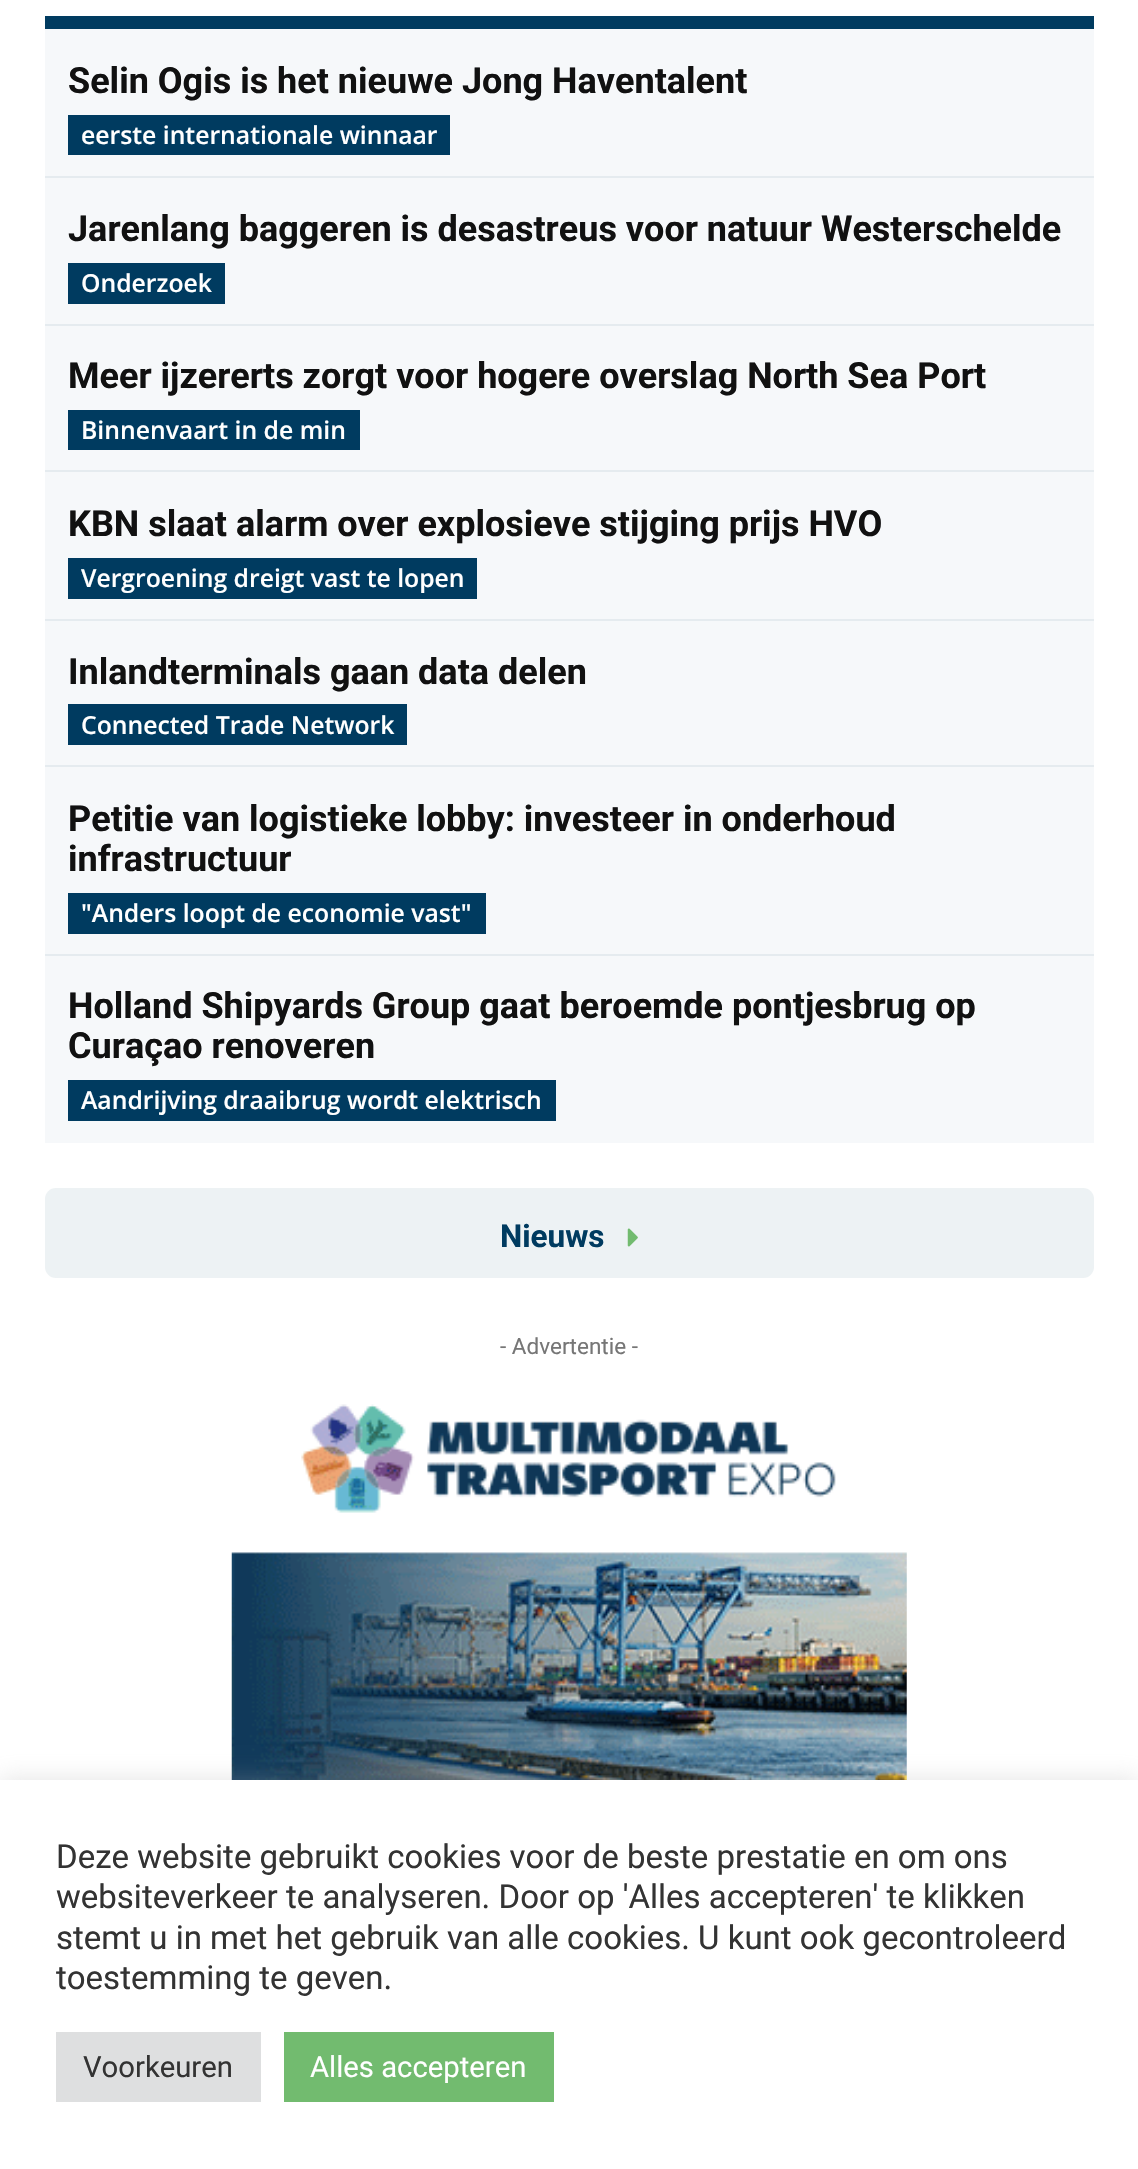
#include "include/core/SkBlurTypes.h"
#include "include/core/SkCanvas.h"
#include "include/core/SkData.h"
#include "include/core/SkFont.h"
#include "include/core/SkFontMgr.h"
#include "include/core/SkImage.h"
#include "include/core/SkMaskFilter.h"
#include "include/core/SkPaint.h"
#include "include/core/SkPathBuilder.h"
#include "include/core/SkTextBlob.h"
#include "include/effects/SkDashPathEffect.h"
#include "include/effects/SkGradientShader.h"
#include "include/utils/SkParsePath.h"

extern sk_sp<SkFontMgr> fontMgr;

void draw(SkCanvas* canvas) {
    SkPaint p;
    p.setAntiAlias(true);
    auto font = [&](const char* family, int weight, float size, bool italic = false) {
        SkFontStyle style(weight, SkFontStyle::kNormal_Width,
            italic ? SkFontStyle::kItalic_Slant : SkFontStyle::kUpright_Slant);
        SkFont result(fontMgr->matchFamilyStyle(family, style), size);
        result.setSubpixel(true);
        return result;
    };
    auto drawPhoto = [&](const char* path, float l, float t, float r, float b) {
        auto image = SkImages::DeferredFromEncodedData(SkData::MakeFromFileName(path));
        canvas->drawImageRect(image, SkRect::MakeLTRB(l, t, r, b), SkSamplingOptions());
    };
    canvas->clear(0xFFFFFFFF);
    p.setColor(0xFF003B60);
    canvas->drawRect(SkRect::MakeLTRB(45, 16, 1094, 29), p);
    p.setColor(0xFFF6F8FA);
    canvas->drawRect(SkRect::MakeLTRB(45, 29, 1094, 1143), p);
    auto font1 = font("Roboto", 700, 36);
    p.setColor(0xFF111111);
    canvas->drawString("Selin Ogis is het nieuwe Jong Haventalent", 68, 93, font1, p);
    p.setColor(0xFF003B60);
    canvas->drawRect(SkRect::MakeLTRB(68, 115, 450, 155), p);
    auto font2 = font("Open Sans", 600, 24.75f);
    p.setColor(0xFFFFFFFF);
    canvas->drawString("eerste internationale winnaar", 81, 144, font2, p);
    p.setColor(0xFFE5EBEF);
    canvas->drawRect(SkRect::MakeLTRB(45, 176, 1094, 178), p);
    p.setColor(0xFF111111);
    canvas->drawString("Jarenlang baggeren is desastreus voor natuur Westerschelde", 68, 241, font1, p);
    p.setColor(0xFF003B60);
    canvas->drawRect(SkRect::MakeLTRB(68, 263, 225, 304), p);
    p.setColor(0xFFFFFFFF);
    canvas->drawString("Onderzoek", 81, 292, font2, p);
    p.setColor(0xFFE5EBEF);
    canvas->drawRect(SkRect::MakeLTRB(45, 324, 1094, 326), p);
    p.setColor(0xFF111111);
    canvas->drawString("Meer ijzererts zorgt voor hogere overslag North Sea Port", 68, 388, font1, p);
    p.setColor(0xFF003B60);
    canvas->drawRect(SkRect::MakeLTRB(68, 410, 360, 450), p);
    p.setColor(0xFFFFFFFF);
    canvas->drawString("Binnenvaart in de min", 81, 439, font2, p);
    p.setColor(0xFFE5EBEF);
    canvas->drawRect(SkRect::MakeLTRB(45, 470, 1094, 472), p);
    p.setColor(0xFF111111);
    canvas->drawString("KBN slaat alarm over explosieve stijging prijs HVO", 68, 536, font1, p);
    p.setColor(0xFF003B60);
    canvas->drawRect(SkRect::MakeLTRB(68, 558, 477, 599), p);
    p.setColor(0xFFFFFFFF);
    canvas->drawString("Vergroening dreigt vast te lopen", 81, 587, font2, p);
    p.setColor(0xFFE5EBEF);
    canvas->drawRect(SkRect::MakeLTRB(45, 619, 1094, 621), p);
    p.setColor(0xFF111111);
    canvas->drawString("Inlandterminals gaan data delen", 68, 684, font1, p);
    p.setColor(0xFF003B60);
    canvas->drawRect(SkRect::MakeLTRB(68, 704, 407, 745), p);
    p.setColor(0xFFFFFFFF);
    canvas->drawString("Connected Trade Network", 81, 734, font2, p);
    p.setColor(0xFFE5EBEF);
    canvas->drawRect(SkRect::MakeLTRB(45, 765, 1094, 767), p);
    p.setColor(0xFF111111);
    canvas->drawString("Petitie van logistieke lobby: investeer in onderhoud", 68, 831, font1, p);
    canvas->drawString("infrastructuur", 68, 871, font1, p);
    p.setColor(0xFF003B60);
    canvas->drawRect(SkRect::MakeLTRB(68, 893, 486, 934), p);
    p.setColor(0xFFFFFFFF);
    canvas->drawString("\"Anders loopt de economie vast\"", 81, 922, font2, p);
    p.setColor(0xFFE5EBEF);
    canvas->drawRect(SkRect::MakeLTRB(45, 954, 1094, 956), p);
    p.setColor(0xFF111111);
    canvas->drawString("Holland Shipyards Group gaat beroemde pontjesbrug op", 68, 1018, font1, p);
    canvas->drawString("Curaçao renoveren", 68, 1058, font1, p);
    p.setColor(0xFF003B60);
    canvas->drawRect(SkRect::MakeLTRB(68, 1080, 556, 1121), p);
    p.setColor(0xFFFFFFFF);
    canvas->drawString("Aandrijving draaibrug wordt elektrisch", 81, 1109, font2, p);
    p.setColor(0xFFEDF2F4);
    canvas->drawRoundRect(SkRect::MakeLTRB(45, 1188, 1094, 1278), 11, 11, p);
    auto font3 = font("Roboto", 700, 31.5f);
    p.setColor(0xFF003B60);
    canvas->drawString("Nieuws", 500, 1247, font3, p);
    drawPhoto("media/1.png", 627, 1228, 638, 1247);
    auto font4 = font("Roboto", 400, 22.5f);
    p.setColor(0xFF767676);
    canvas->drawString("- Advertentie -", 500, 1354, font4, p);
    drawPhoto("media/2.png", 231, 1404, 907, 1780);
    p.setColor(0x4DACABAB);
    p.setMaskFilter(SkMaskFilter::MakeBlur(kNormal_SkBlurStyle, 11));
    canvas->drawRect(SkRect::MakeLTRB(0, 1778, 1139, 2167), p);
    p.setMaskFilter(nullptr);
    p.setColor(0xFFFFFFFF);
    canvas->drawRect(SkRect::MakeLTRB(0, 1780, 1138, 2169), p);
    auto font5 = font("Roboto", 400, 33);
    p.setColor(0xFF333333);
    {
        const struct { const char* s; float x, y; } items[] = {
            {"Deze website gebruikt cookies voor de beste prestatie en om ons", 56, 1868},
            {"websiteverkeer te analyseren. Door op 'Alles accepteren' te klikken", 56, 1908},
            {"stemt u in met het gebruik van alle cookies. U kunt ook gecontroleerd", 56, 1949},
            {"toestemming te geven.", 56, 1989},
        };
        for (auto [s, x, y] : items) {
            canvas->drawString(s, x, y, font5, p);
        }
    }
    p.setColor(0xFFDEDFE0);
    canvas->drawRect(SkRect::MakeLTRB(56, 2032, 261, 2102), p);
    auto font6 = font("Roboto", 400, 29.25f);
    p.setColor(0xFF333333);
    canvas->drawString("Voorkeuren", 83, 2077, font6, p);
    p.setColor(0xFF72BB6F);
    canvas->drawRect(SkRect::MakeLTRB(284, 2032, 554, 2102), p);
    p.setColor(0xFFFFFFFF);
    canvas->drawString("Alles accepteren", 310, 2077, font6, p);
}
